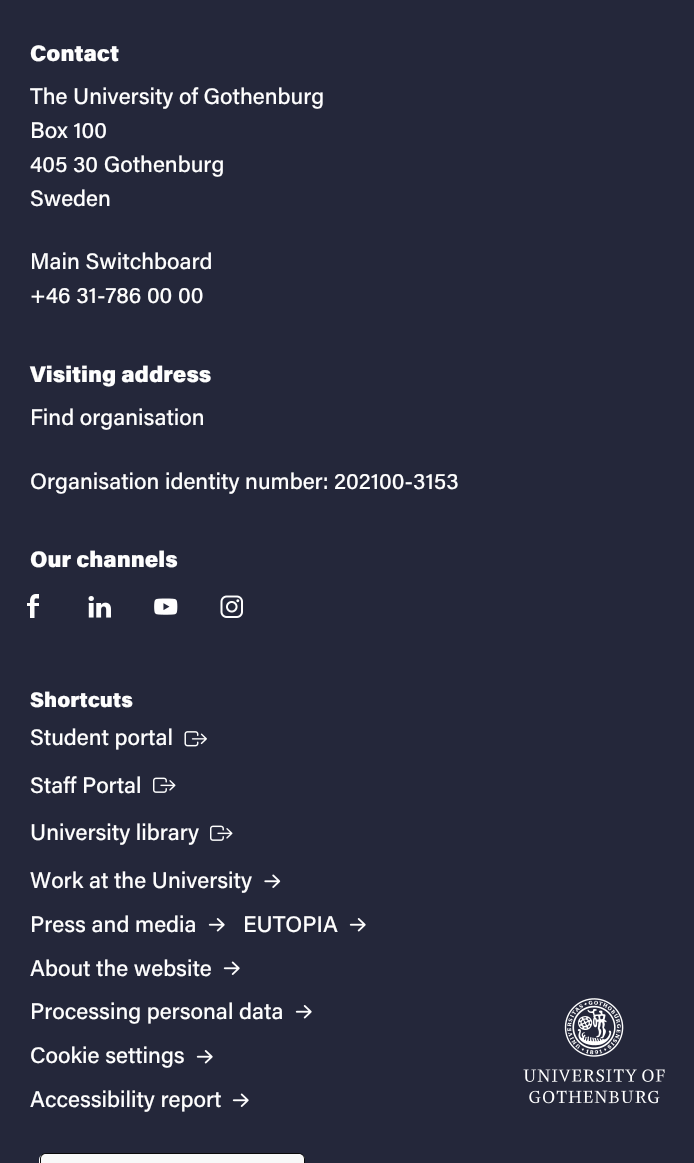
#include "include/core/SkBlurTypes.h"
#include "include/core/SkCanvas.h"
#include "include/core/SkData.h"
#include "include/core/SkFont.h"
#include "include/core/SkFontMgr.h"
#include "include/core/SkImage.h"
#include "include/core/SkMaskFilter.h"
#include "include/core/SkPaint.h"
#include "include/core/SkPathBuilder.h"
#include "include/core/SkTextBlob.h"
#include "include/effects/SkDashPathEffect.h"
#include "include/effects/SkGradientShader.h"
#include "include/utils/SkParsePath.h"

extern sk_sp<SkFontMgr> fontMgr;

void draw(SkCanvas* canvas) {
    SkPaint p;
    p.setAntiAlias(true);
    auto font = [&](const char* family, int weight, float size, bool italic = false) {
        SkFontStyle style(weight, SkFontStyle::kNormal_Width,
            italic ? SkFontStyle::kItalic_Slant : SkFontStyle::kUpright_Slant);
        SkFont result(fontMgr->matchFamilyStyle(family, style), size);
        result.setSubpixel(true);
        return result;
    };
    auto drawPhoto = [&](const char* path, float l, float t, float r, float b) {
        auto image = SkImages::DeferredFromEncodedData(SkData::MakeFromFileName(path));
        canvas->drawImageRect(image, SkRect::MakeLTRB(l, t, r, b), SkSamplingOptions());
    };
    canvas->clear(0xFF24273A);
    auto font1 = font("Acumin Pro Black", 900, 22.5f);
    p.setColor(0xFFFEFEFE);
    canvas->drawString("Contact", 30, 61, font1, p);
    auto font2 = font("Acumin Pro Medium", 500, 22.5f);
    {
        const struct { const char* s; float x, y; } items[] = {
            {"The University of Gothenburg", 30, 104},
            {"Box 100", 30, 138},
            {"405 30 Gothenburg", 30, 172},
            {"Sweden", 30, 206},
            {"Main Switchboard", 30, 269},
            {"+46 31-786 00 00", 30, 303},
        };
        for (auto [s, x, y] : items) {
            canvas->drawString(s, x, y, font2, p);
        }
    }
    canvas->drawString("Visiting address", 30, 382, font1, p);
    canvas->drawString("Find organisation", 30, 425, font2, p);
    canvas->drawString("Organisation identity number: 202100-3153", 30, 489, font2, p);
    canvas->drawString("Our channels", 30, 567, font1, p);
    drawPhoto("media/1.png", 27, 594, 39, 618);
    drawPhoto("media/2.png", 88, 596, 111, 618);
    drawPhoto("media/3.png", 154, 598, 178, 615);
    drawPhoto("media/4.png", 220, 595, 243, 618);
    auto font3 = font("Acumin Pro Black", 900, 21);
    canvas->drawString("Shortcuts", 30, 707, font3, p);
    canvas->drawString("Student portal", 30, 745, font2, p);
    drawPhoto("media/5.png", 184, 731, 207, 747);
    canvas->drawString("Staff Portal", 30, 793, font2, p);
    drawPhoto("media/6.png", 153, 777, 176, 793);
    canvas->drawString("University library", 30, 840, font2, p);
    drawPhoto("media/6.png", 210, 825, 233, 841);
    canvas->drawString("Work at the University", 30, 888, font2, p);
    drawPhoto("media/7.png", 264, 874, 281, 888);
    canvas->drawString("Press and media", 30, 932, font2, p);
    drawPhoto("media/8.png", 208, 918, 225, 932);
    canvas->drawString("EUTOPIA", 243, 932, font2, p);
    drawPhoto("media/8.png", 349, 918, 366, 932);
    canvas->drawString("About the website", 30, 976, font2, p);
    drawPhoto("media/9.png", 223, 961, 240, 975);
    canvas->drawString("Processing personal data", 30, 1019, font2, p);
    drawPhoto("media/8.png", 295, 1005, 312, 1019);
    canvas->drawString("Cookie settings", 30, 1063, font2, p);
    drawPhoto("media/8.png", 196, 1050, 213, 1064);
    canvas->drawString("Accessibility report", 30, 1107, font2, p);
    drawPhoto("media/9.png", 232, 1093, 249, 1107);
    drawPhoto("media/10.png", 523, 998, 665, 1104);
    p.setColor(0xFFF8F8F8);
    canvas->drawPath(SkPathBuilder().moveTo(45, 1154).lineTo(299, 1154).cubicTo(302.5f, 1154, 305, 1156.5f, 305, 1160).lineTo(305, 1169).lineTo(39, 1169).lineTo(39, 1160).cubicTo(39, 1156.5f, 41.5f, 1154, 45, 1154).close().detach(), p);
    p.setColor(0xFF0A0A0A);
    canvas->drawPath(SkPathBuilder(SkPathFillType::kEvenOdd).moveTo(46, 1153).lineTo(299, 1153).cubicTo(302, 1153, 305, 1156, 305, 1159).lineTo(305, 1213).lineTo(40, 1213).lineTo(40, 1159).cubicTo(40, 1156, 42, 1153, 46, 1153).close().moveTo(46, 1154).lineTo(299, 1154).cubicTo(302, 1154, 304, 1156, 304, 1159).lineTo(304, 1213).lineTo(41, 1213).lineTo(41, 1159).cubicTo(41, 1156, 43, 1154, 46, 1154).close().detach(), p);
}
